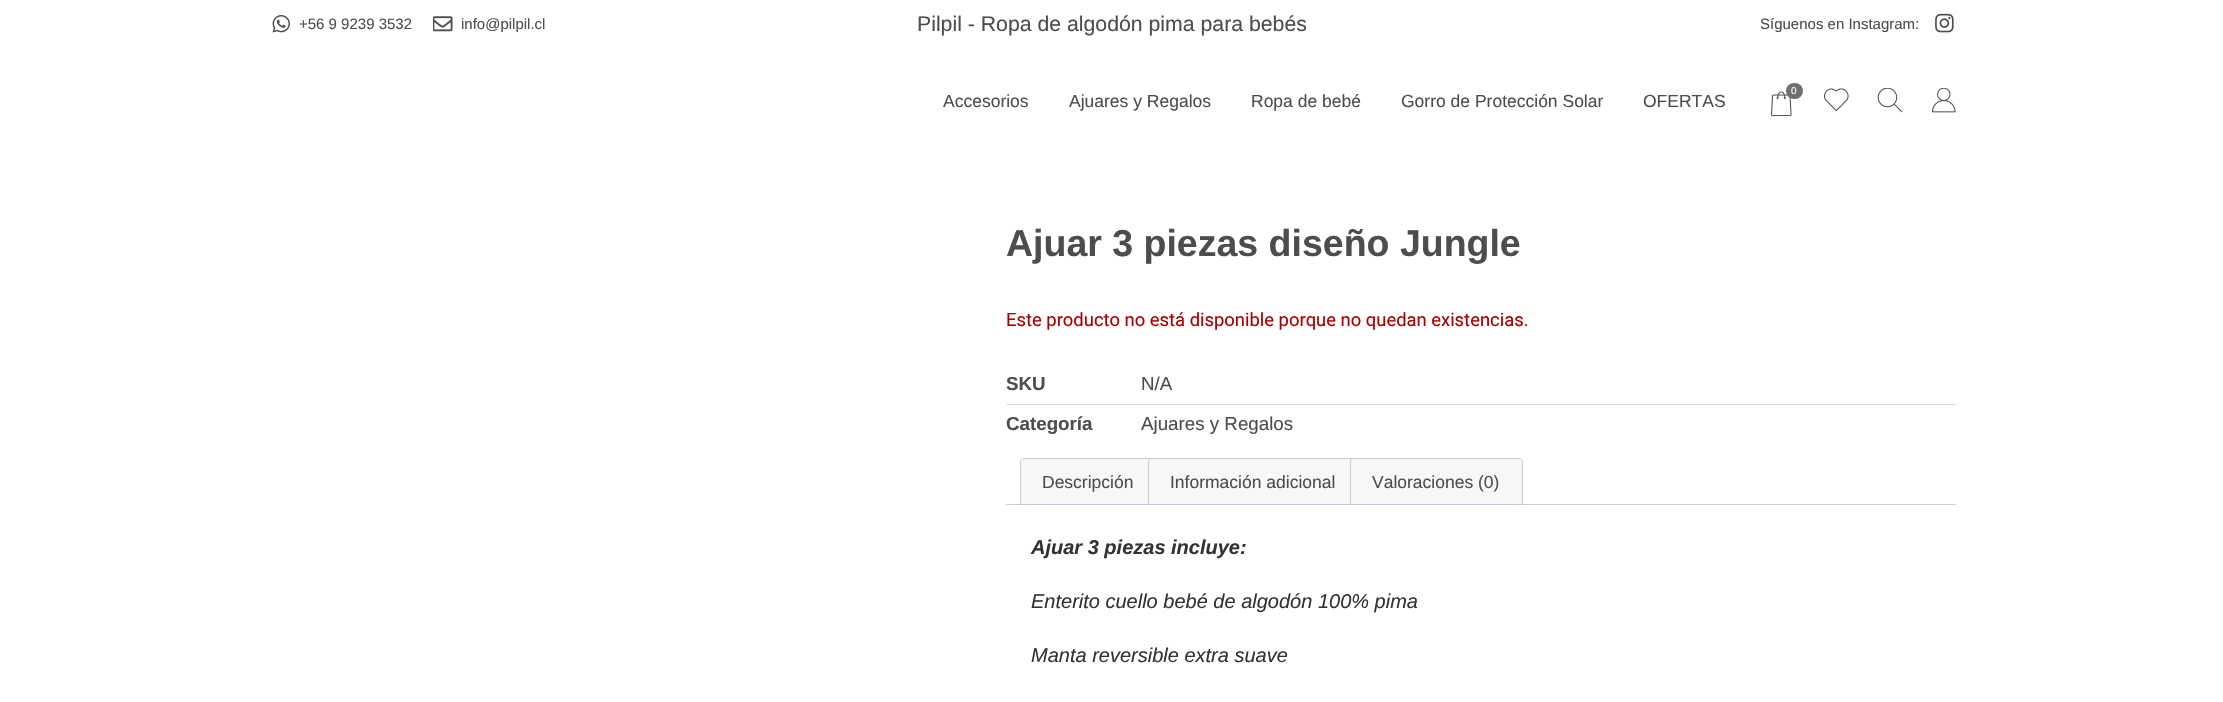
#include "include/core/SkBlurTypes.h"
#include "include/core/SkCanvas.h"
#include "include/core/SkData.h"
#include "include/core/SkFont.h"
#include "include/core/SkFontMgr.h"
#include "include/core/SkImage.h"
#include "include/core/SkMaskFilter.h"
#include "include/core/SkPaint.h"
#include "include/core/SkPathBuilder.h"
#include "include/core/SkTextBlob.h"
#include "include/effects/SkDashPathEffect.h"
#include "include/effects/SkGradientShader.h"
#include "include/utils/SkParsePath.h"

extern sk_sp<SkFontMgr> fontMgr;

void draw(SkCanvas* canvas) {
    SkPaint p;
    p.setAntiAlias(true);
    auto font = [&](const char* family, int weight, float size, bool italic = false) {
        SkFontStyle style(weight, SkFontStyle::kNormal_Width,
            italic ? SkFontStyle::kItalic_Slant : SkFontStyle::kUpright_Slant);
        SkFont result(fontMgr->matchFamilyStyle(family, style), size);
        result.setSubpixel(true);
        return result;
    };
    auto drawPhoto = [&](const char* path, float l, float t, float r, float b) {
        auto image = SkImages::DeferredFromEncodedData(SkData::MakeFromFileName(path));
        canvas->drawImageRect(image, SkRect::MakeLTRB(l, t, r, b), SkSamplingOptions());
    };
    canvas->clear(0xFFFFFFFF);
    drawPhoto("media/1.png", 272, 15, 290, 33);
    auto font1 = font("Liberation Sans", 400, 15);
    p.setColor(0xFF4D4D4C);
    canvas->drawString("+56 9 9239 3532", 299, 29, font1, p);
    drawPhoto("media/2.png", 433, 16, 453, 32);
    canvas->drawString("info@pilpil.cl", 461, 29, font1, p);
    auto font2 = font("Liberation Sans", 400, 21.25f);
    canvas->drawString("Pilpil - Ropa de algodón pima para bebés", 917, 31, font2, p);
    canvas->drawString("Síguenos en Instagram:", 1760, 29, font1, p);
    drawPhoto("media/3.png", 1935, 13, 1954, 33);
    auto font3 = font("Liberation Sans", 400, 17.5f);
    {
        const struct { const char* s; float x, y; } items[] = {
            {"Accesorios", 943, 107},
            {"Ajuares y Regalos", 1069, 107},
            {"Ropa de bebé", 1251, 107},
            {"Gorro de Protección Solar", 1401, 107},
            {"OFERTAS", 1643, 107},
        };
        for (auto [s, x, y] : items) {
            canvas->drawString(s, x, y, font3, p);
        }
    }
    drawPhoto("media/4.png", 1771, 91, 1792, 116);
    p.setColor(0xFF6F6F6E);
    canvas->drawRoundRect(SkRect::MakeLTRB(1786, 83, 1803, 99), 8, 8, p);
    auto font4 = font("Liberation Sans", 400, 10);
    p.setColor(0xFFFFFFFF);
    canvas->drawString("0", 1791, 94, font4, p);
    drawPhoto("media/5.png", 1824, 88, 1849, 111);
    drawPhoto("media/6.png", 1877, 88, 1903, 113);
    drawPhoto("media/7.png", 1932, 88, 1956, 113);
    auto font5 = font("Liberation Sans", 700, 37.5f);
    p.setColor(0xFF4D4D4C);
    canvas->drawString("Ajuar 3 piezas diseño Jungle", 1006, 256, font5, p);
    auto font6 = font("Roboto", 400, 18.4f);
    p.setColor(0xFFAA0000);
    canvas->drawString("Este producto no está disponible porque no quedan existencias.", 1006, 326, font6, p);
    auto font7 = font("Liberation Sans", 700, 18.75f);
    p.setColor(0xFF4D4D4C);
    canvas->drawString("SKU", 1006, 390, font7, p);
    auto font8 = font("Liberation Sans", 400, 18.75f);
    canvas->drawString("N/A", 1141, 390, font8, p);
    p.setColor(0xFFDDDDDD);
    canvas->drawRect(SkRect::MakeLTRB(1006, 404, 1956, 405), p);
    p.setColor(0xFF4D4D4C);
    canvas->drawString("Categoría", 1006, 430, font7, p);
    canvas->drawString("Ajuares y Regalos", 1141, 430, font8, p);
    p.setColor(0xFFD3CED2);
    canvas->drawRect(SkRect::MakeLTRB(1006, 504, 1956, 505), p);
    p.setColor(0xFFF7F7F7);
    canvas->drawPath(SkPathBuilder().moveTo(1024, 458.5f).lineTo(1151, 458.5f).cubicTo(1153, 458.5f, 1154.5f, 460, 1154.5f, 462).lineTo(1154.5f, 504.5f).lineTo(1020.5f, 504.5f).lineTo(1020.5f, 462).cubicTo(1020.5f, 460, 1022, 458.5f, 1024, 458.5f).close().detach(), p);
    p.setStyle(SkPaint::kStroke_Style);
    p.setStrokeWidth(1);
    p.setColor(0xFFCFC8D8);
    canvas->drawPath(SkPathBuilder().moveTo(1024, 458.5f).lineTo(1151, 458.5f).cubicTo(1153, 458.5f, 1154.5f, 460, 1154.5f, 462).lineTo(1154.5f, 504.5f).lineTo(1020.5f, 504.5f).lineTo(1020.5f, 462).cubicTo(1020.5f, 460, 1022, 458.5f, 1024, 458.5f).close().detach(), p);
    p.setStyle(SkPaint::kFill_Style);
    p.setColor(0xFF4D4D4C);
    canvas->drawString("Descripción", 1042, 488, font3, p);
    p.setColor(0xFFF7F7F7);
    canvas->drawPath(SkPathBuilder().moveTo(1152, 458.5f).lineTo(1354, 458.5f).cubicTo(1356, 458.5f, 1357.5f, 460, 1357.5f, 462).lineTo(1357.5f, 504.5f).lineTo(1148.5f, 504.5f).lineTo(1148.5f, 462).cubicTo(1148.5f, 460, 1150, 458.5f, 1152, 458.5f).close().detach(), p);
    p.setStyle(SkPaint::kStroke_Style);
    p.setColor(0xFFCFC8D8);
    canvas->drawPath(SkPathBuilder().moveTo(1152, 458.5f).lineTo(1354, 458.5f).cubicTo(1356, 458.5f, 1357.5f, 460, 1357.5f, 462).lineTo(1357.5f, 504.5f).lineTo(1148.5f, 504.5f).lineTo(1148.5f, 462).cubicTo(1148.5f, 460, 1150, 458.5f, 1152, 458.5f).close().detach(), p);
    p.setStyle(SkPaint::kFill_Style);
    p.setColor(0xFF4D4D4C);
    canvas->drawString("Información adicional", 1170, 488, font3, p);
    p.setColor(0xFFF7F7F7);
    canvas->drawPath(SkPathBuilder().moveTo(1354, 458.5f).lineTo(1519, 458.5f).cubicTo(1521, 458.5f, 1522.5f, 460, 1522.5f, 462).lineTo(1522.5f, 504.5f).lineTo(1350.5f, 504.5f).lineTo(1350.5f, 462).cubicTo(1350.5f, 460, 1352, 458.5f, 1354, 458.5f).close().detach(), p);
    p.setStyle(SkPaint::kStroke_Style);
    p.setColor(0xFFCFC8D8);
    canvas->drawPath(SkPathBuilder().moveTo(1354, 458.5f).lineTo(1519, 458.5f).cubicTo(1521, 458.5f, 1522.5f, 460, 1522.5f, 462).lineTo(1522.5f, 504.5f).lineTo(1350.5f, 504.5f).lineTo(1350.5f, 462).cubicTo(1350.5f, 460, 1352, 458.5f, 1354, 458.5f).close().detach(), p);
    p.setStyle(SkPaint::kFill_Style);
    p.setColor(0xFF4D4D4C);
    canvas->drawString("Valoraciones (0)", 1372, 488, font3, p);
    auto font9 = font("Liberation Sans", 700, 20, true);
    p.setColor(0xFF333333);
    canvas->drawString("Ajuar 3 piezas incluye:", 1031, 554, font9, p);
    auto font10 = font("Liberation Sans", 400, 20, true);
    canvas->drawString("Enterito cuello bebé de algodón 100% pima", 1031, 608, font10, p);
    canvas->drawString("Manta reversible extra suave", 1031, 662, font10, p);
}
